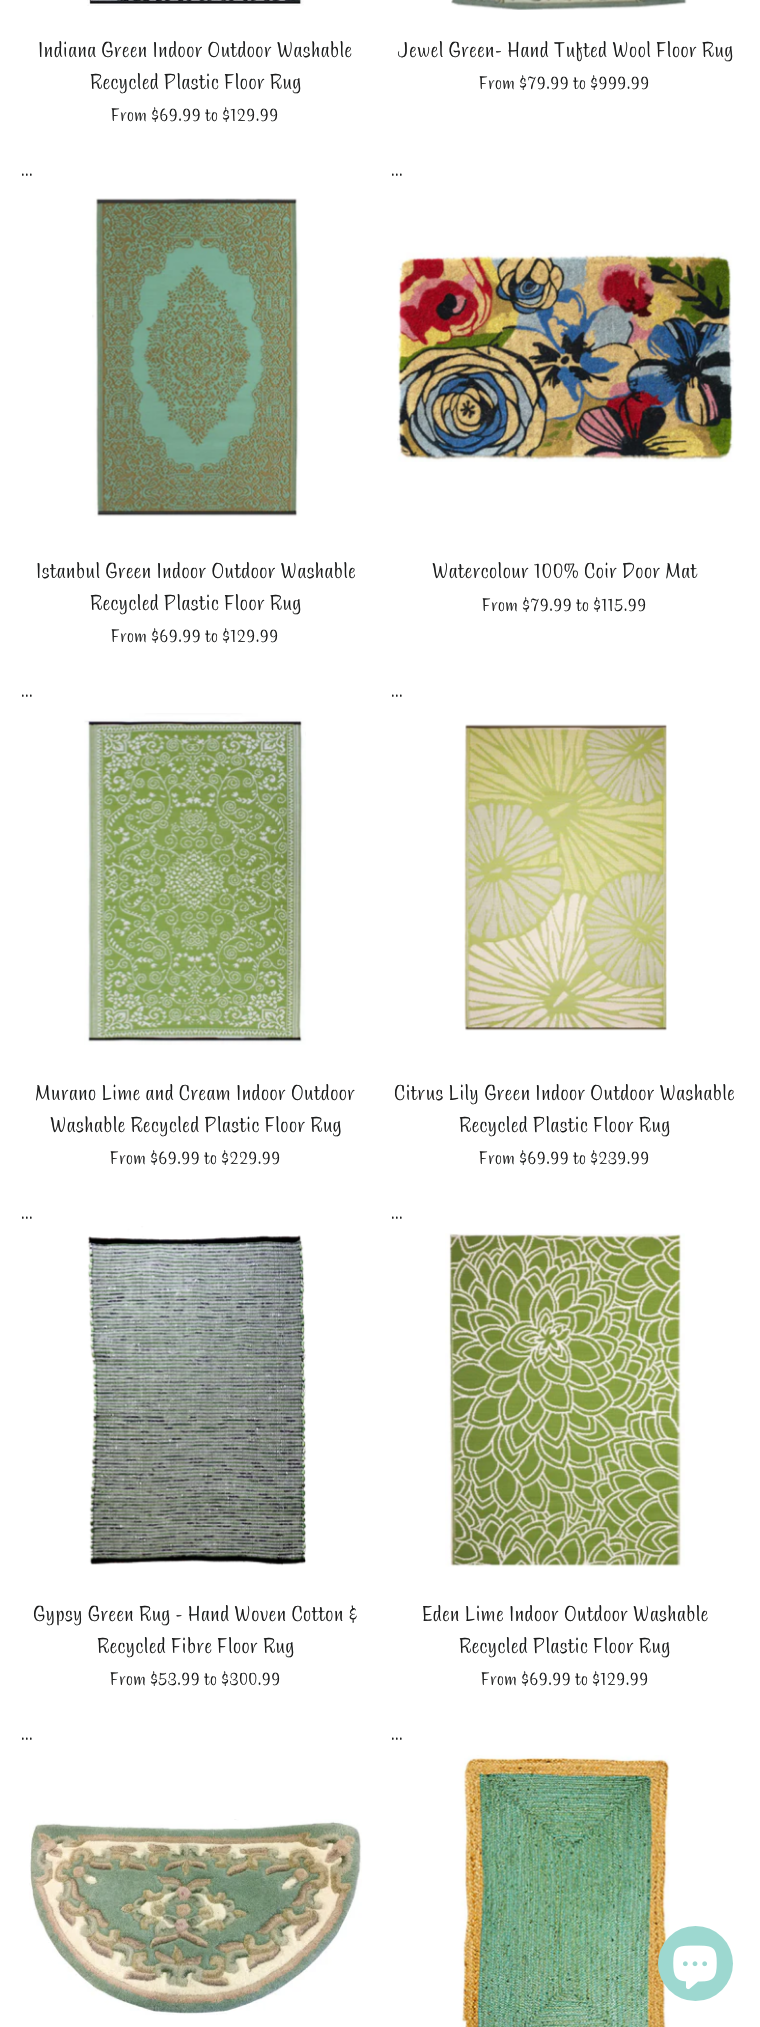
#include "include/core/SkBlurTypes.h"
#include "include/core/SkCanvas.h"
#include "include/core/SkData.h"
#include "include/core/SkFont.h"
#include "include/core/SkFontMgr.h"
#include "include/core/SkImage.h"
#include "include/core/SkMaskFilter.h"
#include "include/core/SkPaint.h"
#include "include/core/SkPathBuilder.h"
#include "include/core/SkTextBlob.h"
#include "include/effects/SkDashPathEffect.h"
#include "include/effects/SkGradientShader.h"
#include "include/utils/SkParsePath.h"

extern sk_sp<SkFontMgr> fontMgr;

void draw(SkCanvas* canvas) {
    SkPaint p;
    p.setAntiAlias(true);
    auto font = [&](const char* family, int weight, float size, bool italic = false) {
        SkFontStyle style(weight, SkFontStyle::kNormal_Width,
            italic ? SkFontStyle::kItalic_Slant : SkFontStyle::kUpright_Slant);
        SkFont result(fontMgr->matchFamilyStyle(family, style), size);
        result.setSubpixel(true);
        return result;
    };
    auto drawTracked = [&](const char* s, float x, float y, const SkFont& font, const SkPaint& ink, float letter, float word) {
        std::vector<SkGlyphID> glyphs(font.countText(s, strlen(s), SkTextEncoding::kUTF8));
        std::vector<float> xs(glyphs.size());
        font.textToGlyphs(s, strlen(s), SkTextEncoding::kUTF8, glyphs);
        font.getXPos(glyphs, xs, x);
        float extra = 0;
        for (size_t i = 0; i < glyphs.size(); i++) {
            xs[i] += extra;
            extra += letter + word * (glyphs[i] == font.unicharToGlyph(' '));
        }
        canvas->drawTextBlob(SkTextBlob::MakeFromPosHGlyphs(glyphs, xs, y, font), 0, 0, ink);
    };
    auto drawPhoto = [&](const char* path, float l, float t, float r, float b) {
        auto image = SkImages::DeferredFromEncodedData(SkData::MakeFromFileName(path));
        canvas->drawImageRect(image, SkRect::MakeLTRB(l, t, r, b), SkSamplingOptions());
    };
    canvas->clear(0xFFFFFFFF);
    drawPhoto("media/1.png", 87, 0, 304, 6);
    auto font1 = font("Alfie", 400, 21.25f);
    p.setColor(0xFF1C1D1D);
    drawTracked("Indiana Green Indoor Outdoor Washable", 38, 57, font1, p, 0.55f, 0);
    drawTracked("Recycled Plastic Floor Rug", 90, 89, font1, p, 0.55f, 0);
    auto font2 = font("Alfie", 400, 18);
    drawTracked("From $69.99 to $129.99", 111, 121, font2, p, 0.45f, 0);
    drawPhoto("media/2.png", 451, 0, 687, 10);
    drawTracked("Jewel Green- Hand Tufted Wool Floor Rug", 397, 57, font1, p, 0.55f, 0);
    drawTracked("From $79.99 to $999.99", 479, 89, font2, p, 0.45f, 0);
    drawTracked("...", 21, 176, font2, p, 0.45f, 0);
    drawPhoto("media/3.png", 92, 198, 300, 517);
    drawTracked("Istanbul Green Indoor Outdoor Washable", 36, 578, font1, p, 0.55f, 0);
    drawTracked("Recycled Plastic Floor Rug", 90, 610, font1, p, 0.55f, 0);
    drawTracked("From $69.99 to $129.99", 111, 642, font2, p, 0.45f, 0);
    drawTracked("...", 391, 176, font2, p, 0.45f, 0);
    drawPhoto("media/4.png", 397, 252, 734, 462);
    drawTracked("Watercolour 100% Coir Door Mat", 432, 578, font1, p, 0.55f, 0);
    drawTracked("From $79.99 to $115.99", 482, 611, font2, p, 0.45f, 0);
    drawTracked("...", 21, 697, font2, p, 0.45f, 0);
    drawPhoto("media/5.png", 84, 713, 306, 1045);
    drawTracked("Murano Lime and Cream Indoor Outdoor", 35, 1100, font1, p, 0.55f, 0);
    drawTracked("Washable Recycled Plastic Floor Rug", 50, 1132, font1, p, 0.55f, 0);
    drawTracked("From $69.99 to $229.99", 110, 1164, font2, p, 0.45f, 0);
    drawTracked("...", 391, 697, font2, p, 0.45f, 0);
    drawPhoto("media/6.png", 464, 724, 667, 1031);
    drawTracked("Citrus Lily Green Indoor Outdoor Washable", 394, 1100, font1, p, 0.55f, 0);
    drawTracked("Recycled Plastic Floor Rug", 459, 1132, font1, p, 0.55f, 0);
    drawTracked("From $69.99 to $239.99", 479, 1164, font2, p, 0.45f, 0);
    drawTracked("...", 21, 1219, font2, p, 0.45f, 0);
    drawPhoto("media/7.png", 87, 1226, 307, 1566);
    drawTracked("Gypsy Green Rug - Hand Woven Cotton &", 33, 1621, font1, p, 0.55f, 0);
    drawTracked("Recycled Fibre Floor Rug", 97, 1653, font1, p, 0.55f, 0);
    drawTracked("From $53.99 to $300.99", 110, 1685, font2, p, 0.45f, 0);
    drawTracked("...", 391, 1219, font2, p, 0.45f, 0);
    drawPhoto("media/8.png", 445, 1233, 685, 1567);
    drawTracked("Eden Lime Indoor Outdoor Washable", 422, 1621, font1, p, 0.55f, 0);
    drawTracked("Recycled Plastic Floor Rug", 459, 1653, font1, p, 0.55f, 0);
    drawTracked("From $69.99 to $129.99", 481, 1685, font2, p, 0.45f, 0);
    drawTracked("...", 21, 1740, font2, p, 0.45f, 0);
    drawPhoto("media/9.png", 29, 1819, 362, 2015);
    drawTracked("...", 391, 1740, font2, p, 0.45f, 0);
    drawPhoto("media/10.png", 460, 1755, 670, 2027);
    p.setColor(0xFF9DD8D0);
    canvas->drawCircle(695.5f, 1963.5f, 37.5f, p);
    drawPhoto("media/11.png", 673, 1945, 717, 1990);
}
